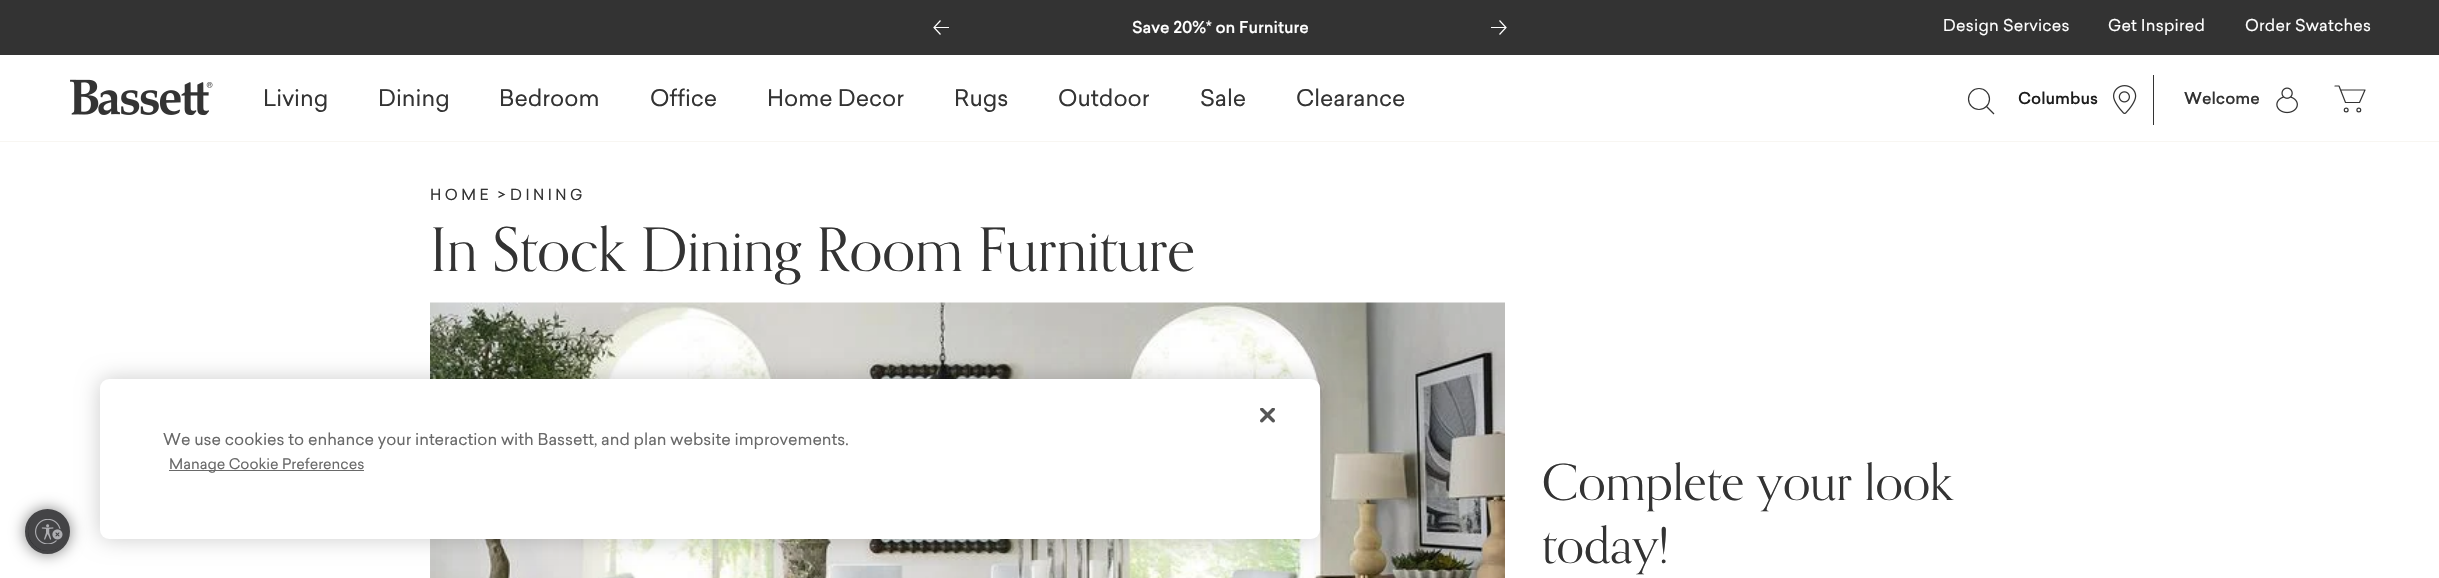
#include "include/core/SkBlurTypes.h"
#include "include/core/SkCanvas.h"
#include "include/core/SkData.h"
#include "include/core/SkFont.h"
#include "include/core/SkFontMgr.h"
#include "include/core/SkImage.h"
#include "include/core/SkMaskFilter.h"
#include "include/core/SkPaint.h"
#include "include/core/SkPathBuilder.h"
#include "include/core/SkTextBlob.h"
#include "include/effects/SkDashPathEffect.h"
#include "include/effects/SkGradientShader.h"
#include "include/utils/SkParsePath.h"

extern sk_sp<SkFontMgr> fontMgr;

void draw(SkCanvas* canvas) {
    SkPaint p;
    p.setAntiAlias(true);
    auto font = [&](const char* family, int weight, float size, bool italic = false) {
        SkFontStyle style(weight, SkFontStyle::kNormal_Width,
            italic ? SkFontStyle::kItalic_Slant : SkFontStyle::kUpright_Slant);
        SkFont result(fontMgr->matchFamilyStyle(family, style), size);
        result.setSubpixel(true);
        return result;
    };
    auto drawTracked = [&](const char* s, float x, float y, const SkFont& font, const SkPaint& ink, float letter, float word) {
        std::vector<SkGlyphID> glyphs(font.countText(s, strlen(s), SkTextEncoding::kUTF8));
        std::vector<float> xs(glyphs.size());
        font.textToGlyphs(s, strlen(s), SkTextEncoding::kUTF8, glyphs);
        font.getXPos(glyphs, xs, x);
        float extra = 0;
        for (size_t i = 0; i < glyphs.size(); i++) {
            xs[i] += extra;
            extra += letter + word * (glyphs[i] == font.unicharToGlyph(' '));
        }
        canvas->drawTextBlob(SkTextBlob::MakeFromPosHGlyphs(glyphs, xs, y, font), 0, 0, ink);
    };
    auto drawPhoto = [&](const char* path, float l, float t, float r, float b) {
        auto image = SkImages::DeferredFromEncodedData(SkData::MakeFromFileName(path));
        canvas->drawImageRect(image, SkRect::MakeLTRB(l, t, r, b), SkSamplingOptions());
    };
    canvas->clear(0xFFFFFFFF);
    p.setColor(0xFF333333);
    canvas->drawRect(SkRect::MakeLTRB(0, 0, 2439, 55), p);
    p.setColor(0xFFFFFFFF);
    canvas->drawRect(SkRect::MakeLTRB(934, 27, 949, 28), p);
    p.setStyle(SkPaint::kStroke_Style);
    p.setStrokeWidth(1.2f);
    canvas->drawPath(SkPathBuilder().moveTo(940.5f, 20.5f).lineTo(934, 27.5f).lineTo(940.5f, 34.5f).detach(), p);
    auto font1 = font("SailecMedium", 400, 16);
    p.setStyle(SkPaint::kFill_Style);
    canvas->drawString("Save 20%* on Furniture", 1132, 33, font1, p);
    canvas->drawRect(SkRect::MakeLTRB(1491, 27, 1506, 28), p);
    p.setStyle(SkPaint::kStroke_Style);
    canvas->drawPath(SkPathBuilder().moveTo(1499.5f, 20.5f).lineTo(1506, 27.5f).lineTo(1499.5f, 34.5f).detach(), p);
    auto font2 = font("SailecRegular", 400, 16);
    p.setStyle(SkPaint::kFill_Style);
    {
        const struct { const char* s; float x, y; } items[] = {
            {"Design Services", 1943, 31},
            {"Get Inspired", 2108, 31},
            {"Order Swatches", 2245, 31},
        };
        for (auto [s, x, y] : items) {
            drawTracked(s, x, y, font2, p, 0.25f, 0);
        }
    }
    p.setColor(0xFFF8F6F2);
    canvas->drawRect(SkRect::MakeLTRB(0, 141, 2439, 142), p);
    drawPhoto("media/1.png", 70, 79, 213, 116);
    auto font3 = font("SailecRegular", 400, 22.5f);
    p.setColor(0xFF333333);
    {
        const struct { const char* s; float x, y; } items[] = {
            {"Living", 263, 106},
            {"Dining", 378, 106},
            {"Bedroom", 499, 106},
            {"Office", 650, 106},
            {"Home Decor", 767, 106},
            {"Rugs", 954, 106},
            {"Outdoor", 1058, 106},
            {"Sale", 1200, 106},
            {"Clearance", 1296, 106},
        };
        for (auto [s, x, y] : items) {
            canvas->drawString(s, x, y, font3, p);
        }
    }
    p.setStyle(SkPaint::kStroke_Style);
    canvas->drawCircle(1979, 99, 10.5f, p);
    canvas->drawPath(SkPathBuilder().moveTo(1994, 114).lineTo(1986, 106).detach(), p);
    p.setStyle(SkPaint::kFill_Style);
    p.setColor(0xFF1C1C1C);
    canvas->drawString("Columbus", 2018, 104, font1, p);
    drawPhoto("media/2.png", 2113, 85, 2137, 114);
    p.setColor(0xFF333333);
    canvas->drawRect(SkRect::MakeLTRB(2153, 75, 2154, 125), p);
    canvas->drawString("Welcome", 2184, 104, font1, p);
    drawPhoto("media/3.png", 2276, 87, 2298, 114);
    p.setStyle(SkPaint::kStroke_Style);
    p.setStrokeCap(SkPaint::kRound_Cap);
    p.setStrokeJoin(SkPaint::kRound_Join);
    canvas->drawPath(SkPathBuilder().moveTo(2335, 86).lineTo(2339, 86).lineTo(2345.5f, 102.5f).lineTo(2359.5f, 102.5f).lineTo(2365, 90).lineTo(2340.5f, 90).detach(), p);
    p.setStrokeCap(SkPaint::kButt_Cap);
    p.setStrokeJoin(SkPaint::kMiter_Join);
    canvas->drawCircle(2346.2f, 110, 1.9f, p);
    canvas->drawCircle(2358.8f, 110, 1.9f, p);
    auto font4 = font("SailecRegular", 400, 15);
    p.setStyle(SkPaint::kFill_Style);
    drawTracked("HOME", 430, 200, font4, p, 3.5f, 0);
    canvas->drawString(">", 498, 200, font4, p);
    drawTracked("DINING", 510, 200, font4, p, 3.5f, 0);
    auto font5 = font("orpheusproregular", 400, 60);
    canvas->drawString("In Stock Dining Room Furniture", 430, 271, font5, p);
    drawPhoto("media/4.png", 430, 302, 1505, 578);
    auto font6 = font("orpheusproregular", 400, 50);
    canvas->drawString("Complete your look", 1542, 500, font6, p);
    canvas->drawString("today!", 1542, 563, font6, p);
    p.setColor(0x33000000);
    p.setMaskFilter(SkMaskFilter::MakeBlur(kNormal_SkBlurStyle, 11));
    canvas->drawRoundRect(SkRect::MakeLTRB(100, 379, 1320, 539), 9, 9, p);
    p.setMaskFilter(nullptr);
    p.setColor(0xFFFFFFFF);
    canvas->drawRoundRect(SkRect::MakeLTRB(100, 379, 1320, 539), 9, 9, p);
    drawPhoto("media/5.png", 1260, 408, 1275, 423);
    p.setColor(0xFF696969);
    canvas->drawString("We use cookies to enhance your interaction with Bassett, and plan website improvements.", 163, 445, font2, p);
    canvas->drawRect(SkRect::MakeLTRB(169, 470, 364, 471), p);
    auto font7 = font("SailecRegular", 400, 14.4f);
    canvas->drawString("Manage Cookie Preferences", 169, 469, font7, p);
    p.setColor(0x80000000);
    p.setMaskFilter(SkMaskFilter::MakeBlur(kNormal_SkBlurStyle, 7.5f));
    canvas->drawRoundRect(SkRect::MakeLTRB(25, 509, 70, 554), 22.5f, 22.5f, p);
    p.setMaskFilter(nullptr);
    p.setColor(0xFF242426);
    canvas->drawCircle(47.5f, 531.5f, 21, p);
    p.setStyle(SkPaint::kStroke_Style);
    p.setStrokeWidth(3);
    p.setColor(0xFF444446);
    canvas->drawCircle(47.5f, 531.5f, 21, p);
    canvas->save();
    canvas->clipPath(SkPathBuilder().moveTo(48, 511).cubicTo(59, 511, 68, 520, 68, 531).cubicTo(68, 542, 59, 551, 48, 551).cubicTo(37, 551, 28, 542, 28, 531).cubicTo(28, 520, 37, 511, 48, 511).close().detach(), true);
    p.setStyle(SkPaint::kFill_Style);
    p.setColor(0x3D000000);
    p.setMaskFilter(SkMaskFilter::MakeBlur(kNormal_SkBlurStyle, 1));
    canvas->drawRoundRect(SkRect::MakeLTRB(28, 513, 68, 553), 20, 20, p);
    p.setMaskFilter(nullptr);
    canvas->restore();
    p.setColor(0xFF444446);
    canvas->drawCircle(48, 531, 20, p);
    drawPhoto("media/6.png", 35, 519, 63, 544);
}
